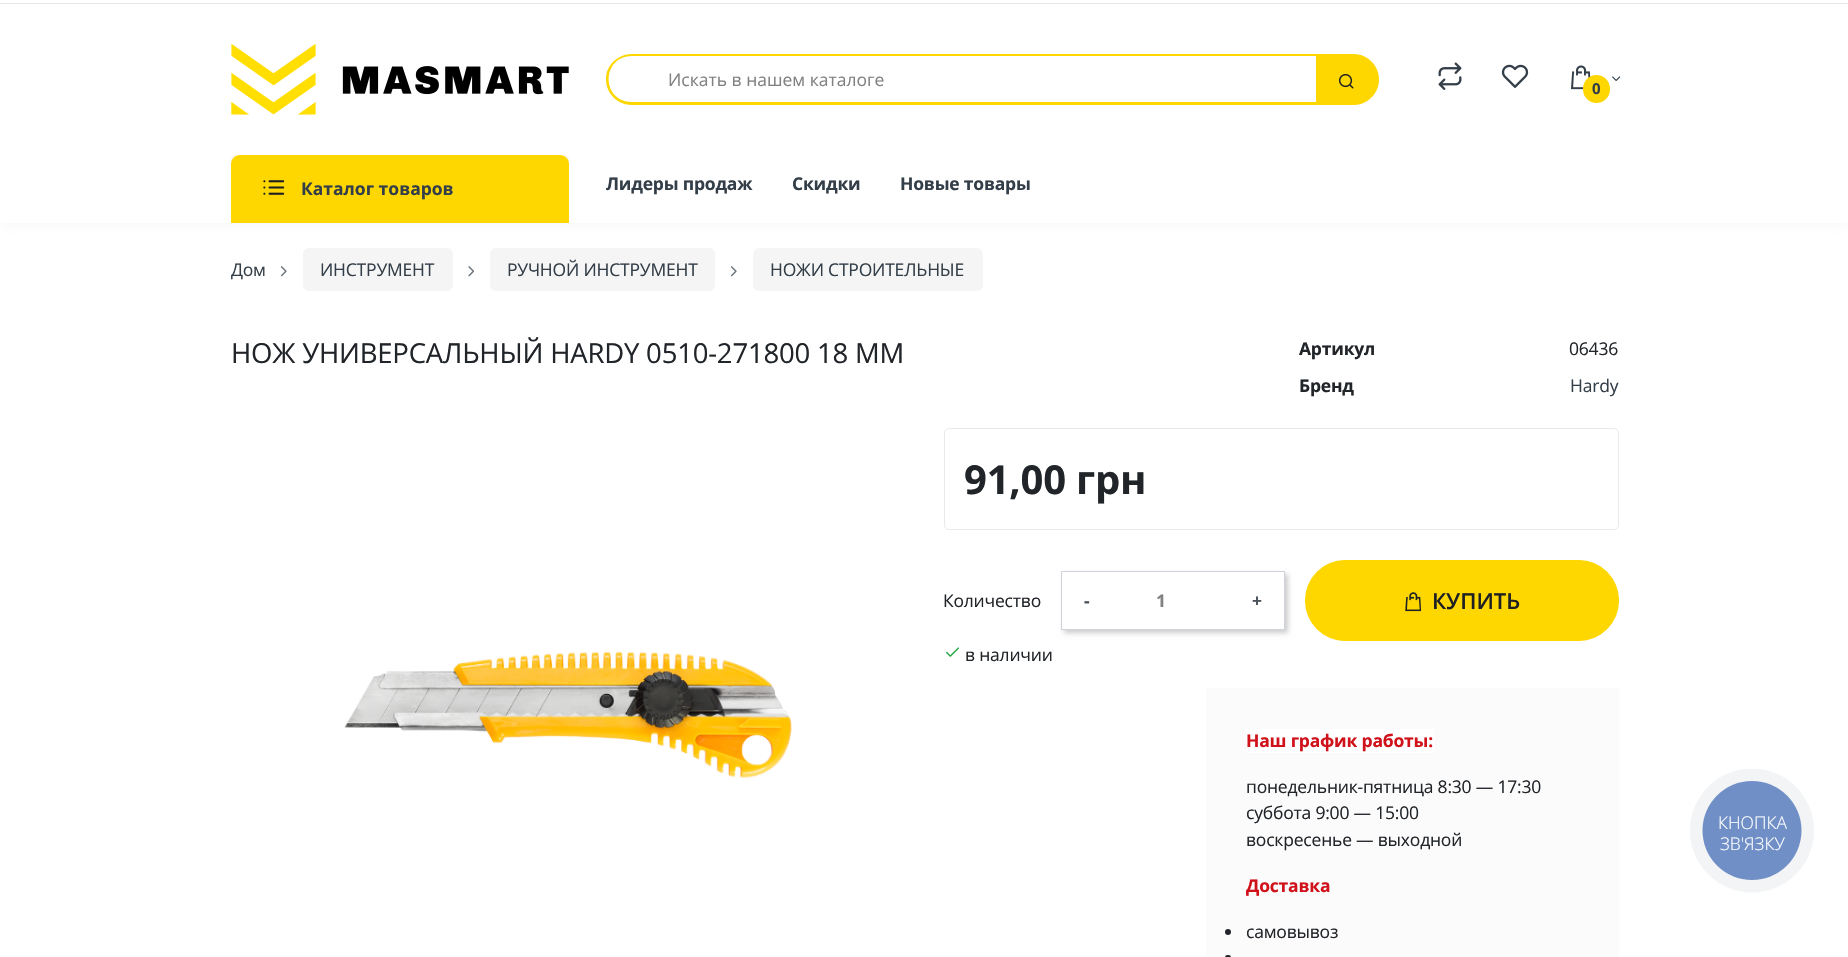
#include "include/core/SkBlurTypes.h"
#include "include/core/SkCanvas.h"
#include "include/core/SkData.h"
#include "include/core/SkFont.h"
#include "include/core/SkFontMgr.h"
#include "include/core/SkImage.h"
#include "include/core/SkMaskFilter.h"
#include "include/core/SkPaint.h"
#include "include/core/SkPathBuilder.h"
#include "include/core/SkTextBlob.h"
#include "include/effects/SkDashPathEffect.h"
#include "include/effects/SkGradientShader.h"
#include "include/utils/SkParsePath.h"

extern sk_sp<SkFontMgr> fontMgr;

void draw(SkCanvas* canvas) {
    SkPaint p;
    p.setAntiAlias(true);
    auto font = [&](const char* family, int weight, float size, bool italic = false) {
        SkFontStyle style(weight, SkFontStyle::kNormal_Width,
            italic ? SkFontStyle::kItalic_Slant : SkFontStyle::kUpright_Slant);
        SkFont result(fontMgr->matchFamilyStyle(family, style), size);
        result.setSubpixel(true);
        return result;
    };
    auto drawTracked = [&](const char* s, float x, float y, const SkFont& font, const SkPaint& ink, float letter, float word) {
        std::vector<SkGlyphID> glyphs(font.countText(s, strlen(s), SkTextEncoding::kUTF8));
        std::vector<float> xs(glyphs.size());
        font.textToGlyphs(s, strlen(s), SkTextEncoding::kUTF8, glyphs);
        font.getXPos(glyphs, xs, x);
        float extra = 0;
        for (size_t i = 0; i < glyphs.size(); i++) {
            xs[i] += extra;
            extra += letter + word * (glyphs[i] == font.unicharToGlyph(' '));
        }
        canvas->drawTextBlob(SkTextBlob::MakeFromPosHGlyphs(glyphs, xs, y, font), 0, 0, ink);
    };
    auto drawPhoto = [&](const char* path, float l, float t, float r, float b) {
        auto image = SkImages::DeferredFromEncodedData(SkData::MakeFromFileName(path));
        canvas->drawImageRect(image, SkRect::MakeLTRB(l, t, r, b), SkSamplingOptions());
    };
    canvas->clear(0xFFFFFFFF);
    p.setColor(0x1A97A4AF);
    p.setMaskFilter(SkMaskFilter::MakeBlur(kNormal_SkBlurStyle, 6));
    canvas->drawRect(SkRect::MakeLTRB(0, -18, 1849, 224), p);
    p.setMaskFilter(nullptr);
    p.setColor(0xFFFFFFFF);
    canvas->drawRect(SkRect::MakeLTRB(0, 0, 1848, 223), p);
    p.setColor(0xFFE8E8E8);
    canvas->drawRect(SkRect::MakeLTRB(0, 3, 1848, 4), p);
    drawPhoto("media/1.png", 231, 44, 569, 115);
    p.setColor(0xFFFED700);
    canvas->drawPath(SkPathBuilder(SkPathFillType::kEvenOdd).moveTo(632, 54).lineTo(1318, 54).lineTo(1318, 105).lineTo(632, 105).cubicTo(618, 105, 606, 94, 606, 79).cubicTo(606, 65, 618, 54, 632, 54).close().moveTo(632, 56).lineTo(1318, 56).lineTo(1318, 102).lineTo(632, 102).cubicTo(601, 102, 601, 56, 632, 56).close().detach(), p);
    auto font1 = font("Open Sans", 400, 17.5f);
    p.setColor(0xFF818181);
    canvas->drawString("Искать в нашем каталоге", 668, 86, font1, p);
    p.setColor(0xFFFED700);
    canvas->drawPath(SkPathBuilder().moveTo(1316.5f, 54.5f).lineTo(1353.5f, 54.5f).cubicTo(1367.5f, 54.5f, 1378.5f, 65.5f, 1378.5f, 79.5f).cubicTo(1378.5f, 93.5f, 1367.5f, 104.5f, 1353.5f, 104.5f).lineTo(1316.5f, 104.5f).close().detach(), p);
    p.setStyle(SkPaint::kStroke_Style);
    p.setStrokeWidth(1);
    canvas->drawPath(SkPathBuilder().moveTo(1316.5f, 54.5f).lineTo(1353.5f, 54.5f).cubicTo(1367.5f, 54.5f, 1378.5f, 65.5f, 1378.5f, 79.5f).cubicTo(1378.5f, 93.5f, 1367.5f, 104.5f, 1353.5f, 104.5f).lineTo(1316.5f, 104.5f).close().detach(), p);
    drawPhoto("media/2.png", 1338, 74, 1354, 89);
    drawPhoto("media/3.png", 1438, 62, 1462, 90);
    drawPhoto("media/4.png", 1501, 64, 1529, 88);
    drawPhoto("media/5.png", 1570, 65, 1591, 90);
    drawPhoto("media/6.png", 1612, 76, 1621, 81);
    p.setStyle(SkPaint::kFill_Style);
    canvas->drawRoundRect(SkRect::MakeLTRB(1583, 75, 1610, 103), 13.5f, 13.5f, p);
    auto font2 = font("Open Sans", 700, 15);
    p.setColor(0xFF333E48);
    drawTracked("0", 1592, 94, font2, p, -0.2f, 0);
    p.setColor(0xFFF7F7F7);
    canvas->drawPath(SkPathBuilder().moveTo(236, 155).lineTo(564, 155).cubicTo(567, 155, 569, 157, 569, 160).lineTo(569, 223).lineTo(231, 223).lineTo(231, 160).cubicTo(231, 157, 233, 155, 236, 155).close().detach(), p);
    p.setColor(0xFFFED700);
    canvas->drawPath(SkPathBuilder().moveTo(240, 155).lineTo(560, 155).cubicTo(565, 155, 569, 159, 569, 164).lineTo(569, 223).lineTo(231, 223).lineTo(231, 164).cubicTo(231, 159, 235, 155, 240, 155).close().detach(), p);
    drawPhoto("media/7.png", 263, 180, 285, 195);
    auto font3 = font("Open Sans", 700, 17.5f);
    p.setColor(0xFF333E48);
    canvas->drawString("Каталог товаров", 301, 195, font3, p);
    {
        const struct { const char* s; float x, y; } items[] = {
            {"Лидеры продаж", 606, 190},
            {"Скидки", 792, 190},
            {"Новые товары", 900, 190},
        };
        for (auto [s, x, y] : items) {
            drawTracked(s, x, y, font3, p, -0.2f, 0);
        }
    }
    drawTracked("Дом", 231, 276, font1, p, -0.2f, 0);
    drawPhoto("media/8.png", 280, 266, 287, 277);
    p.setColor(0xFFF5F5F5);
    canvas->drawRoundRect(SkRect::MakeLTRB(303, 248, 453, 291), 6, 6, p);
    p.setColor(0xFF333E48);
    drawTracked("ИНСТРУМЕНТ", 320, 276, font1, p, -0.2f, 0);
    drawPhoto("media/9.png", 468, 266, 475, 277);
    p.setColor(0xFFF5F5F5);
    canvas->drawRoundRect(SkRect::MakeLTRB(490, 248, 715, 291), 6, 6, p);
    p.setColor(0xFF333E48);
    drawTracked("РУЧНОЙ ИНСТРУМЕНТ", 507, 276, font1, p, -0.2f, 0);
    drawPhoto("media/8.png", 730, 266, 737, 277);
    p.setColor(0xFFF5F5F5);
    canvas->drawRoundRect(SkRect::MakeLTRB(753, 248, 983, 291), 6, 6, p);
    p.setColor(0xFF333E48);
    drawTracked("НОЖИ СТРОИТЕЛЬНЫЕ", 770, 276, font1, p, -0.2f, 0);
    auto font4 = font("Open Sans", 400, 27.5f);
    p.setColor(0xFF212529);
    drawTracked("НОЖ УНИВЕРСАЛЬНЫЙ HARDY 0510-271800 18 ММ", 231, 363, font4, p, -0.2f, 0);
    drawPhoto("media/10.png", 344, 651, 792, 778);
    drawTracked("Артикул", 1299, 355, font3, p, -0.2f, 0);
    drawTracked("06436", 1569, 355, font1, p, -0.2f, 0);
    drawTracked("Бренд", 1299, 392, font3, p, -0.2f, 0);
    p.setColor(0xFF333E48);
    drawTracked("Hardy", 1570, 392, font1, p, -0.2f, 0);
    p.setStyle(SkPaint::kStroke_Style);
    p.setColor(0xFFE9E9E9);
    canvas->drawRoundRect(SkRect::MakeLTRB(944.5f, 428.5f, 1618.5f, 529.5f), 4.5f, 4.5f, p);
    auto font5 = font("Open Sans", 700, 40);
    p.setStyle(SkPaint::kFill_Style);
    p.setColor(0xFF212529);
    drawTracked("91,00 грн", 964, 494, font5, p, -0.2f, 0);
    drawTracked("Количество", 943, 607, font1, p, -0.2f, 0);
    canvas->save();
    canvas->clipPath(SkPathBuilder(SkPathFillType::kEvenOdd).moveTo(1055, 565).lineTo(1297, 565).lineTo(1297, 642).lineTo(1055, 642).close().moveTo(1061, 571).lineTo(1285, 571).lineTo(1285, 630).lineTo(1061, 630).close().detach(), true);
    p.setColor(0x33000000);
    p.setMaskFilter(SkMaskFilter::MakeBlur(kNormal_SkBlurStyle, 2.5f));
    canvas->drawRect(SkRect::MakeLTRB(1064, 574, 1288, 633), p);
    p.setMaskFilter(nullptr);
    canvas->restore();
    p.setStyle(SkPaint::kStroke_Style);
    p.setColor(0xFFCED4DA);
    canvas->drawRect(SkRect::MakeLTRB(1061.5f, 571.5f, 1284.5f, 629.5f), p);
    p.setStyle(SkPaint::kFill_Style);
    p.setColor(0xFF495057);
    canvas->drawString("-", 1084, 607, font3, p);
    p.setColor(0xFF818181);
    canvas->drawString("1", 1156, 607, font3, p);
    p.setColor(0xFF495057);
    canvas->drawString("+", 1252, 607, font3, p);
    p.setColor(0xFFFED700);
    canvas->drawRoundRect(SkRect::MakeLTRB(1305.5f, 560.5f, 1618.5f, 640.5f), 39.5f, 39.5f, p);
    p.setStyle(SkPaint::kStroke_Style);
    canvas->drawRoundRect(SkRect::MakeLTRB(1305.5f, 560.5f, 1618.5f, 640.5f), 39.5f, 39.5f, p);
    drawPhoto("media/11.png", 1405, 592, 1422, 612);
    auto font6 = font("Open Sans", 600, 22);
    p.setStyle(SkPaint::kFill_Style);
    p.setColor(0xFF1E2022);
    canvas->drawString("КУПИТЬ", 1432, 609, font6, p);
    drawPhoto("media/12.png", 946, 647, 959, 657);
    p.setColor(0xFF212529);
    drawTracked("в наличии", 965, 661, font1, p, -0.2f, 0);
    p.setColor(0xFFFBFBFB);
    canvas->drawRect(SkRect::MakeLTRB(1206, 688, 1619, 957), p);
    p.setColor(0xFFFFFFFF);
    canvas->drawRect(SkRect::MakeLTRB(1246, 729, 1434, 753), p);
    p.setColor(0xFFD0121A);
    drawTracked("Наш график работы:", 1246, 747, font3, p, -0.2f, 0);
    p.setColor(0xFF212529);
    {
        const struct { const char* s; float x, y; } items[] = {
            {"понедельник-пятница 8:30 — 17:30", 1246, 793},
            {"суббота 9:00 — 15:00", 1246, 819},
            {"воскресенье — выходной", 1246, 846},
        };
        for (auto [s, x, y] : items) {
            drawTracked(s, x, y, font1, p, -0.2f, 0);
        }
    }
    p.setColor(0xFFD0121A);
    drawTracked("Доставка", 1246, 892, font3, p, -0.2f, 0);
    p.setColor(0xFF212529);
    canvas->drawCircle(1228, 932, 3, p);
    drawTracked("самовывоз", 1246, 938, font1, p, -0.2f, 0);
    canvas->drawRoundRect(SkRect::MakeLTRB(1225, 955, 1231, 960), 3, 3, p);
    canvas->save();
    canvas->clipRect(SkRect::MakeLTRB(1690, 769, 1814, 893));
    p.setColor(0xFFF2F4F5);
    canvas->drawCircle(1752, 830.5f, 62, p);
    canvas->restore();
    p.setColor(0xFF708FC6);
    canvas->drawCircle(1752, 830.5f, 49.5f, p);
    auto font7 = font("Open Sans", 300, 17.5f);
    p.setColor(0xFFFFFFFF);
    canvas->drawString("КНОПКА", 1718, 829, font7, p);
    canvas->drawString("ЗВ'ЯЗКУ", 1720, 850, font7, p);
}
